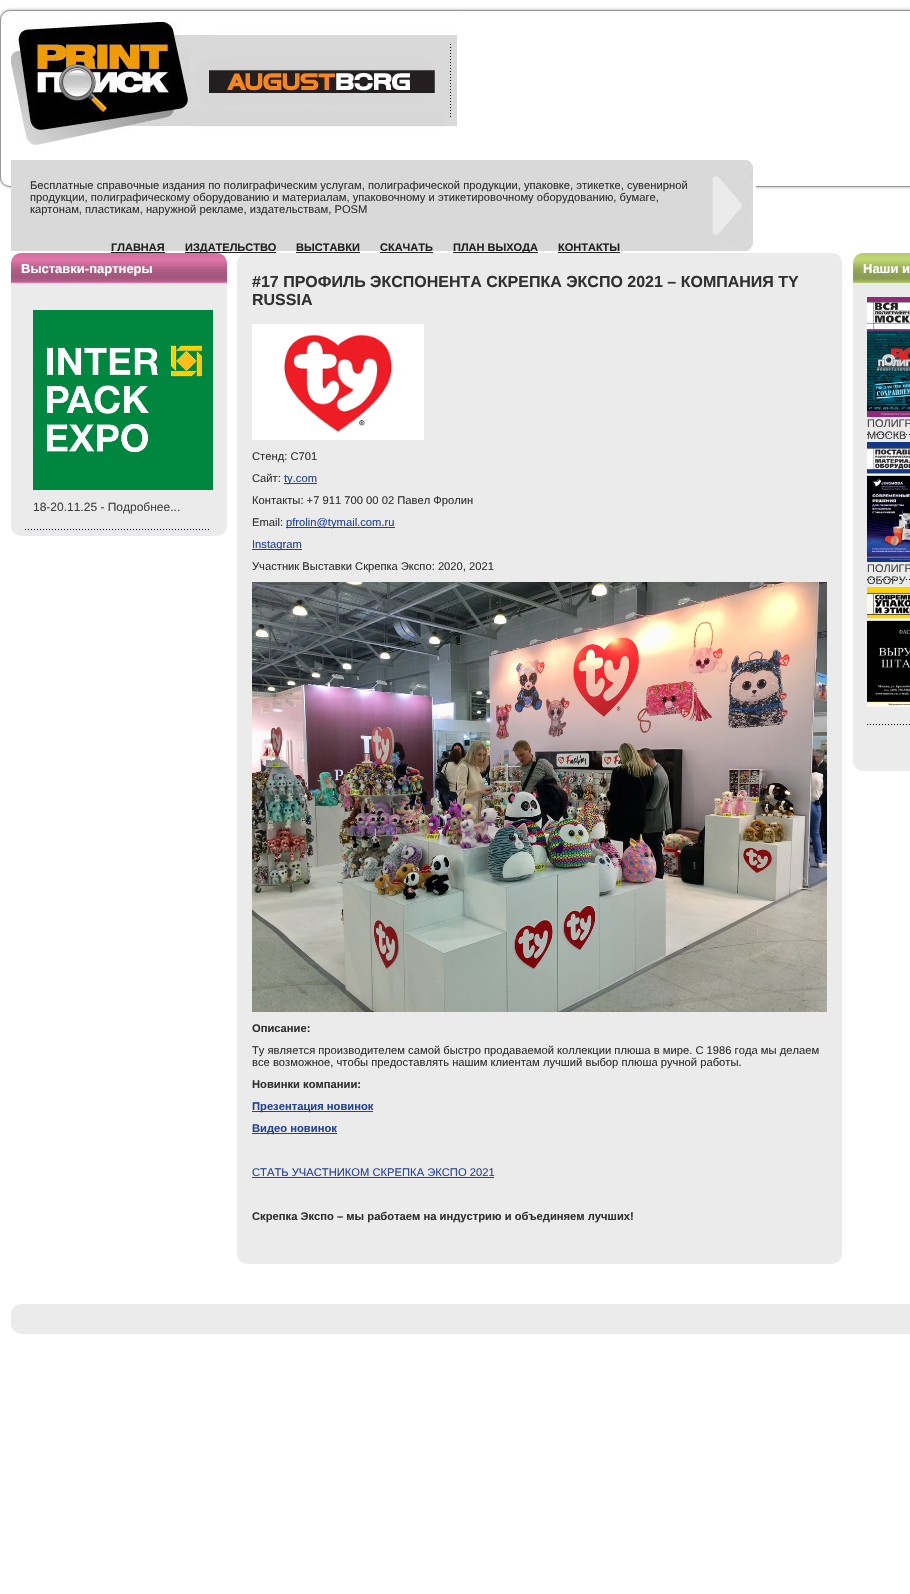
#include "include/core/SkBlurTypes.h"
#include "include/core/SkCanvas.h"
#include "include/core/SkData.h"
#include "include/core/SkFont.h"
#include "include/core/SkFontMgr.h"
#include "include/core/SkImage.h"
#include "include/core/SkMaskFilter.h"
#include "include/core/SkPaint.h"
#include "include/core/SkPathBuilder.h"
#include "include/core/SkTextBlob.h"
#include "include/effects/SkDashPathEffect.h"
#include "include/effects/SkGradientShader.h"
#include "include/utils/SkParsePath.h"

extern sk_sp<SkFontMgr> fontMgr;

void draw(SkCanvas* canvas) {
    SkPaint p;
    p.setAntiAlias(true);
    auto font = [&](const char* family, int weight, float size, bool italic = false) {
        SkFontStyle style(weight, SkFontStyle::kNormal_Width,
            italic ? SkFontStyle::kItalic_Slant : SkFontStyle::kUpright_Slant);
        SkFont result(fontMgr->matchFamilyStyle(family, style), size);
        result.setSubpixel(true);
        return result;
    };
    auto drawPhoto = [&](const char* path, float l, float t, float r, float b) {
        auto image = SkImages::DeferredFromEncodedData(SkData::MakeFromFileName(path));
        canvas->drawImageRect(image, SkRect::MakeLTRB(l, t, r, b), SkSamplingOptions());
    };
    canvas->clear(0xFFFFFFFF);
    p.setColor(0xFF999999);
    p.setMaskFilter(SkMaskFilter::MakeBlur(kNormal_SkBlurStyle, 1.5f));
    canvas->drawRoundRect(SkRect::MakeLTRB(0, 10, 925, 187), 10, 10, p);
    p.setMaskFilter(nullptr);
    p.setColor(0xFFFFFFFF);
    canvas->drawRoundRect(SkRect::MakeLTRB(0.5f, 10.5f, 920.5f, 186.5f), 9.5f, 9.5f, p);
    p.setStyle(SkPaint::kStroke_Style);
    p.setStrokeWidth(1);
    p.setColor(0xFF989898);
    canvas->drawRoundRect(SkRect::MakeLTRB(0.5f, 10.5f, 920.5f, 186.5f), 9.5f, 9.5f, p);
    drawPhoto("media/1.png", 11, 22, 457, 145);
    p.setStyle(SkPaint::kFill_Style);
    p.setColor(0xFFD9D9D9);
    canvas->drawRect(SkRect::MakeLTRB(11, 160, 709, 251), p);
    auto font1 = font("Liberation Sans", 400, 11.2f);
    p.setColor(0xFF313131);
    {
        const struct { const char* s; float x, y; } items[] = {
            {"Бесплатные справочные издания по полиграфическим услугам, полиграфической продукции, упаковке, этикетке, сувенирной", 30, 189},
            {"продукции, полиграфическому оборудованию и материалам, упаковочному и этикетировочному оборудованию, бумаге,", 30, 201},
            {"картонам, пластикам, наружной рекламе, издательствам, POSM", 30, 213},
        };
        for (auto [s, x, y] : items) {
            canvas->drawString(s, x, y, font1, p);
        }
    }
    drawPhoto("media/2.png", 709, 160, 756, 251);
    auto font2 = font("Liberation Sans", 700, 11);
    p.setColor(0xFF232323);
    canvas->drawString("ГЛАВНАЯ", 111, 251, font2, p);
    canvas->drawRect(SkRect::MakeLTRB(111, 252, 165, 253), p);
    canvas->drawRect(SkRect::MakeLTRB(185, 252, 276, 253), p);
    canvas->drawString("ИЗДАТЕЛЬСТВО", 185, 251, font2, p);
    canvas->drawString("ВЫСТАВКИ", 296, 251, font2, p);
    canvas->drawRect(SkRect::MakeLTRB(296, 252, 360, 253), p);
    canvas->drawString("СКАЧАТЬ", 380, 251, font2, p);
    canvas->drawRect(SkRect::MakeLTRB(380, 252, 433, 253), p);
    canvas->drawRect(SkRect::MakeLTRB(453, 252, 538, 253), p);
    canvas->drawString("ПЛАН ВЫХОДА", 453, 251, font2, p);
    canvas->drawString("КОНТАКТЫ", 558, 251, font2, p);
    canvas->drawRect(SkRect::MakeLTRB(558, 252, 620, 253), p);
    p.setColor(0xFFEBEBEB);
    canvas->drawRoundRect(SkRect::MakeLTRB(11, 253, 227, 536), 10, 10, p);
    drawPhoto("media/3.png", 11, 253, 227, 283);
    auto font3 = font("Liberation Sans", 700, 13);
    p.setColor(0xFFFFFFFF);
    canvas->drawString("Выставки-партнеры", 21, 273, font3, p);
    drawPhoto("media/4.png", 25, 528, 209, 532);
    drawPhoto("media/5.png", 33, 310, 213, 490);
    auto font4 = font("Liberation Sans", 400, 12);
    p.setColor(0xFF414141);
    canvas->drawString("18-20.11.25 - Подробнее...", 33, 511, font4, p);
    p.setColor(0xFFEBEBEB);
    canvas->drawRoundRect(SkRect::MakeLTRB(237, 253, 842, 1264), 10, 10, p);
    auto font5 = font("Liberation Sans", 700, 16);
    p.setColor(0xFF313131);
    canvas->drawString("#17 ПРОФИЛЬ ЭКСПОНЕНТА СКРЕПКА ЭКСПО 2021 – КОМПАНИЯ TY", 252, 287, font5, p);
    canvas->drawString("RUSSIA", 252, 305, font5, p);
    drawPhoto("media/6.png", 252, 324, 424, 440);
    canvas->drawString("Стенд: C701", 252, 460, font1, p);
    canvas->drawString("Сайт:", 252, 482, font1, p);
    p.setColor(0xFF244296);
    canvas->drawRect(SkRect::MakeLTRB(284, 483, 317, 484), p);
    canvas->drawString("ty.com", 284, 482, font1, p);
    p.setColor(0xFF313131);
    canvas->drawString("Контакты: +7 911 700 00 02 Павел Фролин", 252, 504, font1, p);
    canvas->drawString("Email:", 252, 526, font1, p);
    p.setColor(0xFF244296);
    canvas->drawRect(SkRect::MakeLTRB(286, 527, 395, 528), p);
    canvas->drawString("pfrolin@tymail.com.ru", 286, 526, font1, p);
    canvas->drawRect(SkRect::MakeLTRB(252, 549, 302, 550), p);
    canvas->drawString("Instagram", 252, 548, font1, p);
    p.setColor(0xFF313131);
    canvas->drawString("Участник Выставки Скрепка Экспо: 2020, 2021", 252, 570, font1, p);
    drawPhoto("media/7.png", 252, 582, 827, 1012);
    auto font6 = font("Liberation Sans", 700, 11.2f);
    canvas->drawString("Описание:", 252, 1032, font6, p);
    canvas->drawString("Тy является производителем самой быстро продаваемой коллекции плюша в мире. С 1986 года мы делаем", 252, 1054, font1, p);
    canvas->drawString("все возможное, чтобы предоставлять нашим клиентам лучший выбор плюша ручной работы.", 252, 1066, font1, p);
    canvas->drawString("Новинки компании:", 252, 1088, font6, p);
    p.setColor(0xFF244296);
    canvas->drawRect(SkRect::MakeLTRB(252, 1111, 373, 1112), p);
    canvas->drawString("Презентация новинок", 252, 1110, font6, p);
    canvas->drawRect(SkRect::MakeLTRB(252, 1133, 337, 1134), p);
    canvas->drawString("Видео новинок", 252, 1132, font6, p);
    canvas->drawString("СТАТЬ УЧАСТНИКОМ СКРЕПКА ЭКСПО 2021", 252, 1176, font1, p);
    canvas->drawRect(SkRect::MakeLTRB(252, 1177, 494, 1178), p);
    p.setColor(0xFF313131);
    canvas->drawString("Скрепка Экспо – мы работаем на индустрию и объединяем лучших!", 252, 1220, font6, p);
    p.setColor(0xFFEBEBEB);
    canvas->drawRoundRect(SkRect::MakeLTRB(853, 253, 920, 771), 10, 10, p);
    drawPhoto("media/8.png", 853, 253, 910, 283);
    p.setColor(0xFFFFFFFF);
    canvas->drawString("Наши и", 863, 273, font3, p);
    drawPhoto("media/9.png", 867, 433, 910, 437);
    drawPhoto("media/10.png", 867, 297, 910, 417);
    auto font7 = font("Liberation Sans", 400, 11);
    p.setColor(0xFF414141);
    canvas->drawString("ПОЛИГР", 867, 427, font7, p);
    canvas->drawString("МОСКВ", 867, 439, font7, p);
    drawPhoto("media/9.png", 867, 578, 910, 582);
    drawPhoto("media/11.png", 867, 442, 910, 562);
    canvas->drawString("ПОЛИГР", 867, 572, font7, p);
    canvas->drawString("ОБОРУ", 867, 584, font7, p);
    drawPhoto("media/9.png", 867, 723, 910, 727);
    drawPhoto("media/12.png", 867, 587, 910, 707);
    p.setColor(0xFFEBEBEB);
    canvas->drawRoundRect(SkRect::MakeLTRB(11, 1304, 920, 1334), 10, 10, p);
}
